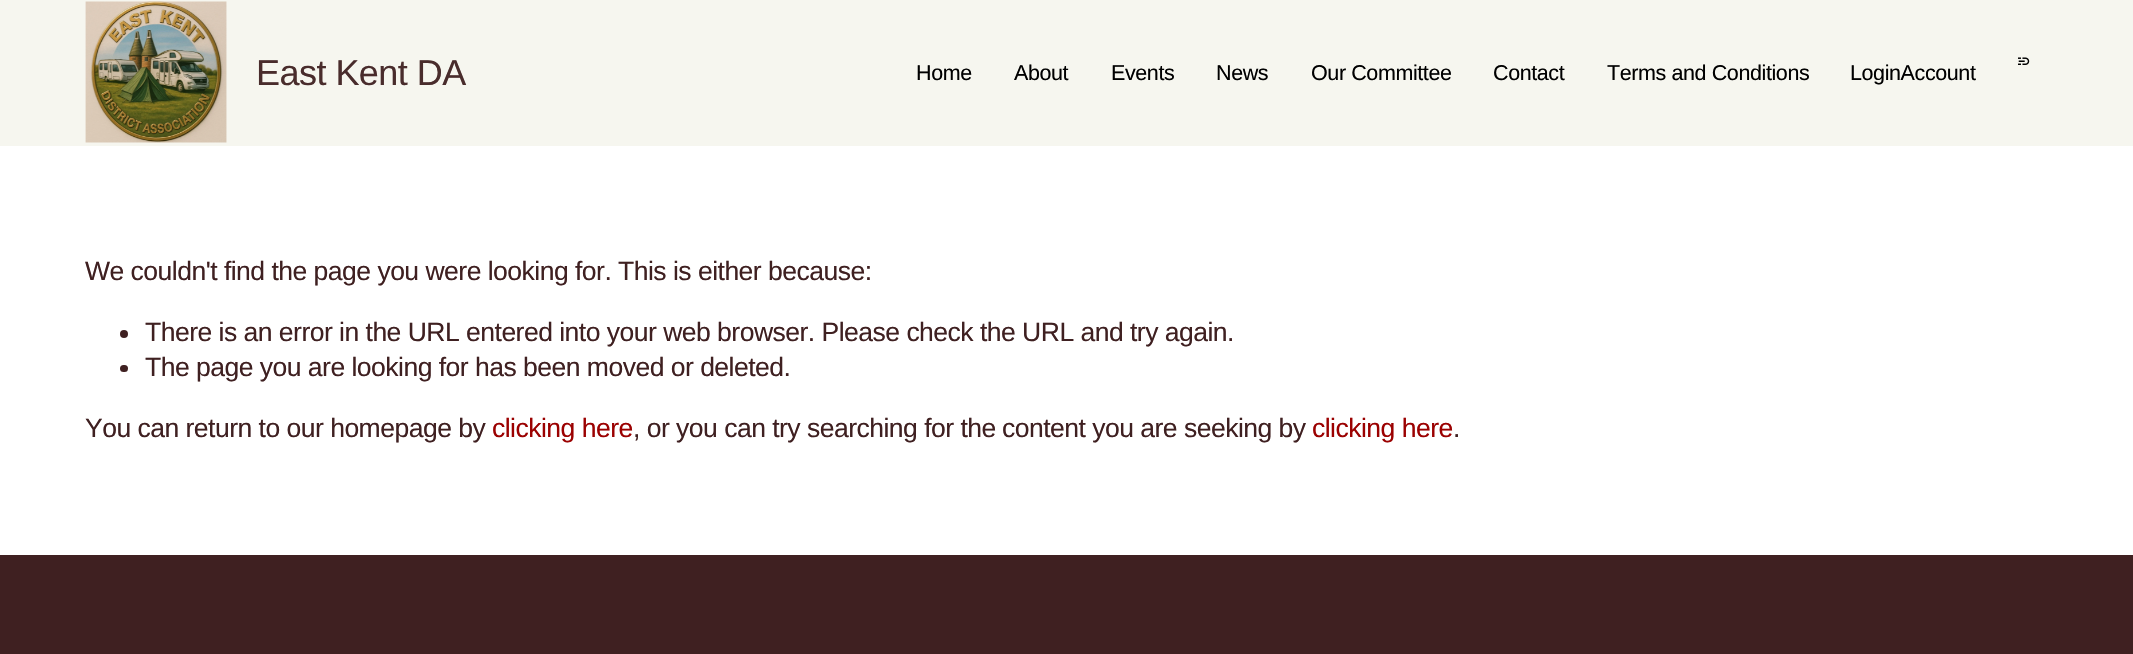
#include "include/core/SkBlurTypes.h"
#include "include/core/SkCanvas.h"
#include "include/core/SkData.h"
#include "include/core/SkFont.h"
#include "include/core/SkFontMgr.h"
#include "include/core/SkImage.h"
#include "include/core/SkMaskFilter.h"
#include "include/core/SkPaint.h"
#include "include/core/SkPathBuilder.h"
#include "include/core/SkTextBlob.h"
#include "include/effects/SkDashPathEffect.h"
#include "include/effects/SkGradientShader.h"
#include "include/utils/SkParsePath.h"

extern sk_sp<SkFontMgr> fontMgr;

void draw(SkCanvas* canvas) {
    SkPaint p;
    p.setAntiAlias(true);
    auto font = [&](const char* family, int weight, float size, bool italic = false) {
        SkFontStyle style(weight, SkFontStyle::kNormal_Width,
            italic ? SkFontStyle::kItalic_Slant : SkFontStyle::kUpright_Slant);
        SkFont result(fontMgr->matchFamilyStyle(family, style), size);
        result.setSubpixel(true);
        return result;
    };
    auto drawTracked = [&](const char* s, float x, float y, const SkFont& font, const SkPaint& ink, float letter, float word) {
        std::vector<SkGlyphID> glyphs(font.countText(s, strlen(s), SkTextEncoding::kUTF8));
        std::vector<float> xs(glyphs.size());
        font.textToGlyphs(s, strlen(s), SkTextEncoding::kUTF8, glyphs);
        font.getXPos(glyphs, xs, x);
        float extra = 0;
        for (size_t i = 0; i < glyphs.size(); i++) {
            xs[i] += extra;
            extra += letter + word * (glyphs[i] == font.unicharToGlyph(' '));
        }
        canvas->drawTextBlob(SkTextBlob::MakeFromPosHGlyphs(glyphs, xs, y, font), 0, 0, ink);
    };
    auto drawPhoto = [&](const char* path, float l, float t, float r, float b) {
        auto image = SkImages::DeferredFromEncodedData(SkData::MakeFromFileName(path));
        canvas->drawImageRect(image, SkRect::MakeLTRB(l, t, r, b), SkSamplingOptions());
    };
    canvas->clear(0xFFFFFFFF);
    p.setColor(0xFFF6F6EF);
    canvas->drawRect(SkRect::MakeLTRB(0, 0, 2133, 146), p);
    drawPhoto("media/1.png", 85, 1, 227, 143);
    auto font1 = font("Liberation Sans", 400, 36);
    p.setColor(0xFF492C2C);
    drawTracked("East Kent DA", 256, 85, font1, p, -0.53f, 0);
    auto font2 = font("Liberation Sans", 400, 21.5f);
    p.setColor(0xFF000000);
    {
        const struct { const char* s; float x, y; } items[] = {
            {"Home", 916, 80},
            {"About", 1014, 80},
            {"Events", 1111, 80},
            {"News", 1216, 80},
            {"Our Committee", 1311, 80},
            {"Contact", 1493, 80},
            {"Terms and Conditions", 1607, 80},
        };
        for (auto [s, x, y] : items) {
            drawTracked(s, x, y, font2, p, -0.4f, 0);
        }
    }
    drawPhoto("media/2.png", 2018, 57, 2030, 65);
    drawTracked("LoginAccount", 1850, 80, font2, p, -0.4f, 0);
    auto font3 = font("Liberation Sans", 400, 26.55f);
    p.setColor(0xFF3F2021);
    drawTracked("We couldn't find the page you were looking for. This is either because:", 85, 280, font3, p, -0.53f, 0);
    canvas->drawCircle(124, 334, 4, p);
    drawTracked("There is an error in the URL entered into your web browser. Please check the URL and try again.", 145, 341, font3, p, -0.53f, 0);
    canvas->drawRoundRect(SkRect::MakeLTRB(120, 365, 128, 372), 3.5f, 3.5f, p);
    drawTracked("The page you are looking for has been moved or deleted.", 145, 376, font3, p, -0.53f, 0);
    drawTracked("You can return to our homepage by", 85, 437, font3, p, -0.53f, 0);
    p.setColor(0xFF9B0101);
    drawTracked("clicking here", 492, 437, font3, p, -0.53f, 0);
    p.setColor(0xFF3F2021);
    drawTracked(", or you can try searching for the", 633, 437, font3, p, -0.53f, 0);
    drawTracked("content you are seeking by", 1002, 437, font3, p, -0.53f, 0);
    p.setColor(0xFF9B0101);
    drawTracked("clicking here", 1312, 437, font3, p, -0.53f, 0);
    p.setColor(0xFF3F2021);
    drawTracked(".", 1453, 437, font3, p, -0.53f, 0);
    canvas->drawRect(SkRect::MakeLTRB(0, 555, 2133, 654), p);
}
